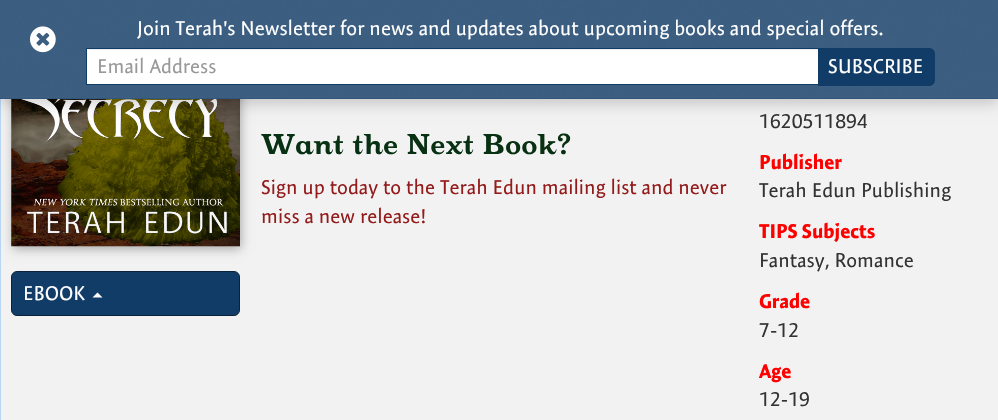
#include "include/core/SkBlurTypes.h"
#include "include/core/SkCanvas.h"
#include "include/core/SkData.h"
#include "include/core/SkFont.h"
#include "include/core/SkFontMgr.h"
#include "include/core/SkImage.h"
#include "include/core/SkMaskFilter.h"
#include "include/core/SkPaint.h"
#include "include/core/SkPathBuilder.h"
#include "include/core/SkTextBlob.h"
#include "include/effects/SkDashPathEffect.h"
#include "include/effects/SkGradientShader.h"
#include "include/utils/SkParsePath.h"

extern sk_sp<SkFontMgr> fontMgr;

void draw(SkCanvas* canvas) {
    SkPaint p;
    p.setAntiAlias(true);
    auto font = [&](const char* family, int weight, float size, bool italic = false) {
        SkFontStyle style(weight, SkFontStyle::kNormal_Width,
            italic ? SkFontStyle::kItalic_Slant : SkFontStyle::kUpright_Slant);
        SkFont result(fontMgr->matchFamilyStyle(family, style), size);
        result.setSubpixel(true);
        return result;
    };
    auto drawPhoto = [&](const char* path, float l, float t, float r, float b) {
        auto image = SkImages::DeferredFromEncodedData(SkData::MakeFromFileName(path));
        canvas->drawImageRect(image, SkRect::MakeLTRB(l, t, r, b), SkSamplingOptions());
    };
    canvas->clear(0xFFF2F2F2);
    p.setColor(0xFFB8D5F3);
    canvas->drawRect(SkRect::MakeLTRB(0, 99, 1, 420), p);
    p.setColor(0x4D000000);
    p.setMaskFilter(SkMaskFilter::MakeBlur(kNormal_SkBlurStyle, 5));
    canvas->drawRect(SkRect::MakeLTRB(13, -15, 241, 249), p);
    p.setMaskFilter(nullptr);
    drawPhoto("media/3.png", 11, 99, 240, 247);
    p.setColor(0x33000000);
    p.setMaskFilter(SkMaskFilter::MakeBlur(kNormal_SkBlurStyle, 7.5f));
    canvas->drawRect(SkRect::MakeLTRB(0, 4, 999, 103), p);
    p.setMaskFilter(nullptr);
    p.setColor(0xFF113C68);
    canvas->drawRect(SkRect::MakeLTRB(0, 0, 998, 99), p);
    drawPhoto("media/1.png", 0, 0, 998, 99);
    drawPhoto("media/2.png", 30, 26, 56, 53);
    auto font1 = font("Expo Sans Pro", 400, 20);
    p.setColor(0xFFFFFFFF);
    canvas->drawString("Join Terah's Newsletter for news and updates about upcoming books and special offers.", 137, 35, font1, p);
    canvas->drawRect(SkRect::MakeLTRB(87, 49, 818, 84), p);
    p.setColor(0xFFECECEC);
    canvas->drawRect(SkRect::MakeLTRB(88, 49, 818, 50), p);
    p.setStyle(SkPaint::kStroke_Style);
    p.setStrokeWidth(1);
    p.setColor(0xFF113C68);
    canvas->drawRect(SkRect::MakeLTRB(86.5f, 48.5f, 818.5f, 84.5f), p);
    p.setStyle(SkPaint::kFill_Style);
    p.setColor(0xFF999999);
    canvas->drawString("Email Address", 97, 73, font1, p);
    p.setColor(0xFF113C68);
    canvas->drawPath(SkPathBuilder().moveTo(818, 48).lineTo(929, 48).cubicTo(932.5f, 48, 935, 50.5f, 935, 54).lineTo(935, 80).cubicTo(935, 83.5f, 932.5f, 86, 929, 86).lineTo(818, 86).close().detach(), p);
    p.setColor(0xFFFFFFFF);
    canvas->drawString("SUBSCRIBE", 828, 73, font1, p);
    auto font2 = font("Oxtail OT", 700, 31.25f);
    p.setColor(0xFF083013);
    canvas->drawString("Want the Next Book?", 261, 154, font2, p);
    p.setColor(0xFF941B1B);
    canvas->drawString("Sign up today to the Terah Edun mailing list and never", 261, 194, font1, p);
    canvas->drawString("miss a new release!", 261, 223, font1, p);
    p.setColor(0xFF333333);
    canvas->drawString("1620511894", 759, 128, font1, p);
    auto font3 = font("Expo Sans Pro", 700, 20);
    p.setColor(0xFFFF0000);
    canvas->drawString("Publisher", 759, 169, font3, p);
    p.setColor(0xFF333333);
    canvas->drawString("Terah Edun Publishing", 759, 197, font1, p);
    p.setColor(0xFFFF0000);
    canvas->drawString("TIPS Subjects", 759, 238, font3, p);
    p.setColor(0xFF333333);
    canvas->drawString("Fantasy, Romance", 759, 267, font1, p);
    p.setColor(0xFFFF0000);
    canvas->drawString("Grade", 759, 308, font3, p);
    p.setColor(0xFF333333);
    canvas->drawString("7-12", 759, 337, font1, p);
    p.setColor(0xFFFF0000);
    canvas->drawString("Age", 759, 378, font3, p);
    p.setColor(0xFF333333);
    canvas->drawString("12-19", 759, 406, font1, p);
    p.setColor(0xFF113C68);
    canvas->drawRoundRect(SkRect::MakeLTRB(11.5f, 271.5f, 239.5f, 315.5f), 5.5f, 5.5f, p);
    p.setStyle(SkPaint::kStroke_Style);
    p.setColor(0xFF0A233C);
    canvas->drawRoundRect(SkRect::MakeLTRB(11.5f, 271.5f, 239.5f, 315.5f), 5.5f, 5.5f, p);
    p.setStyle(SkPaint::kFill_Style);
    p.setColor(0xFFFFFFFF);
    canvas->drawString("EBOOK", 23, 300, font1, p);
    canvas->drawPath(SkPathBuilder().moveTo(102.5f, 297.5f).lineTo(92.5f, 297.5f).lineTo(97.5f, 292.5f).close().detach(), p);
}
